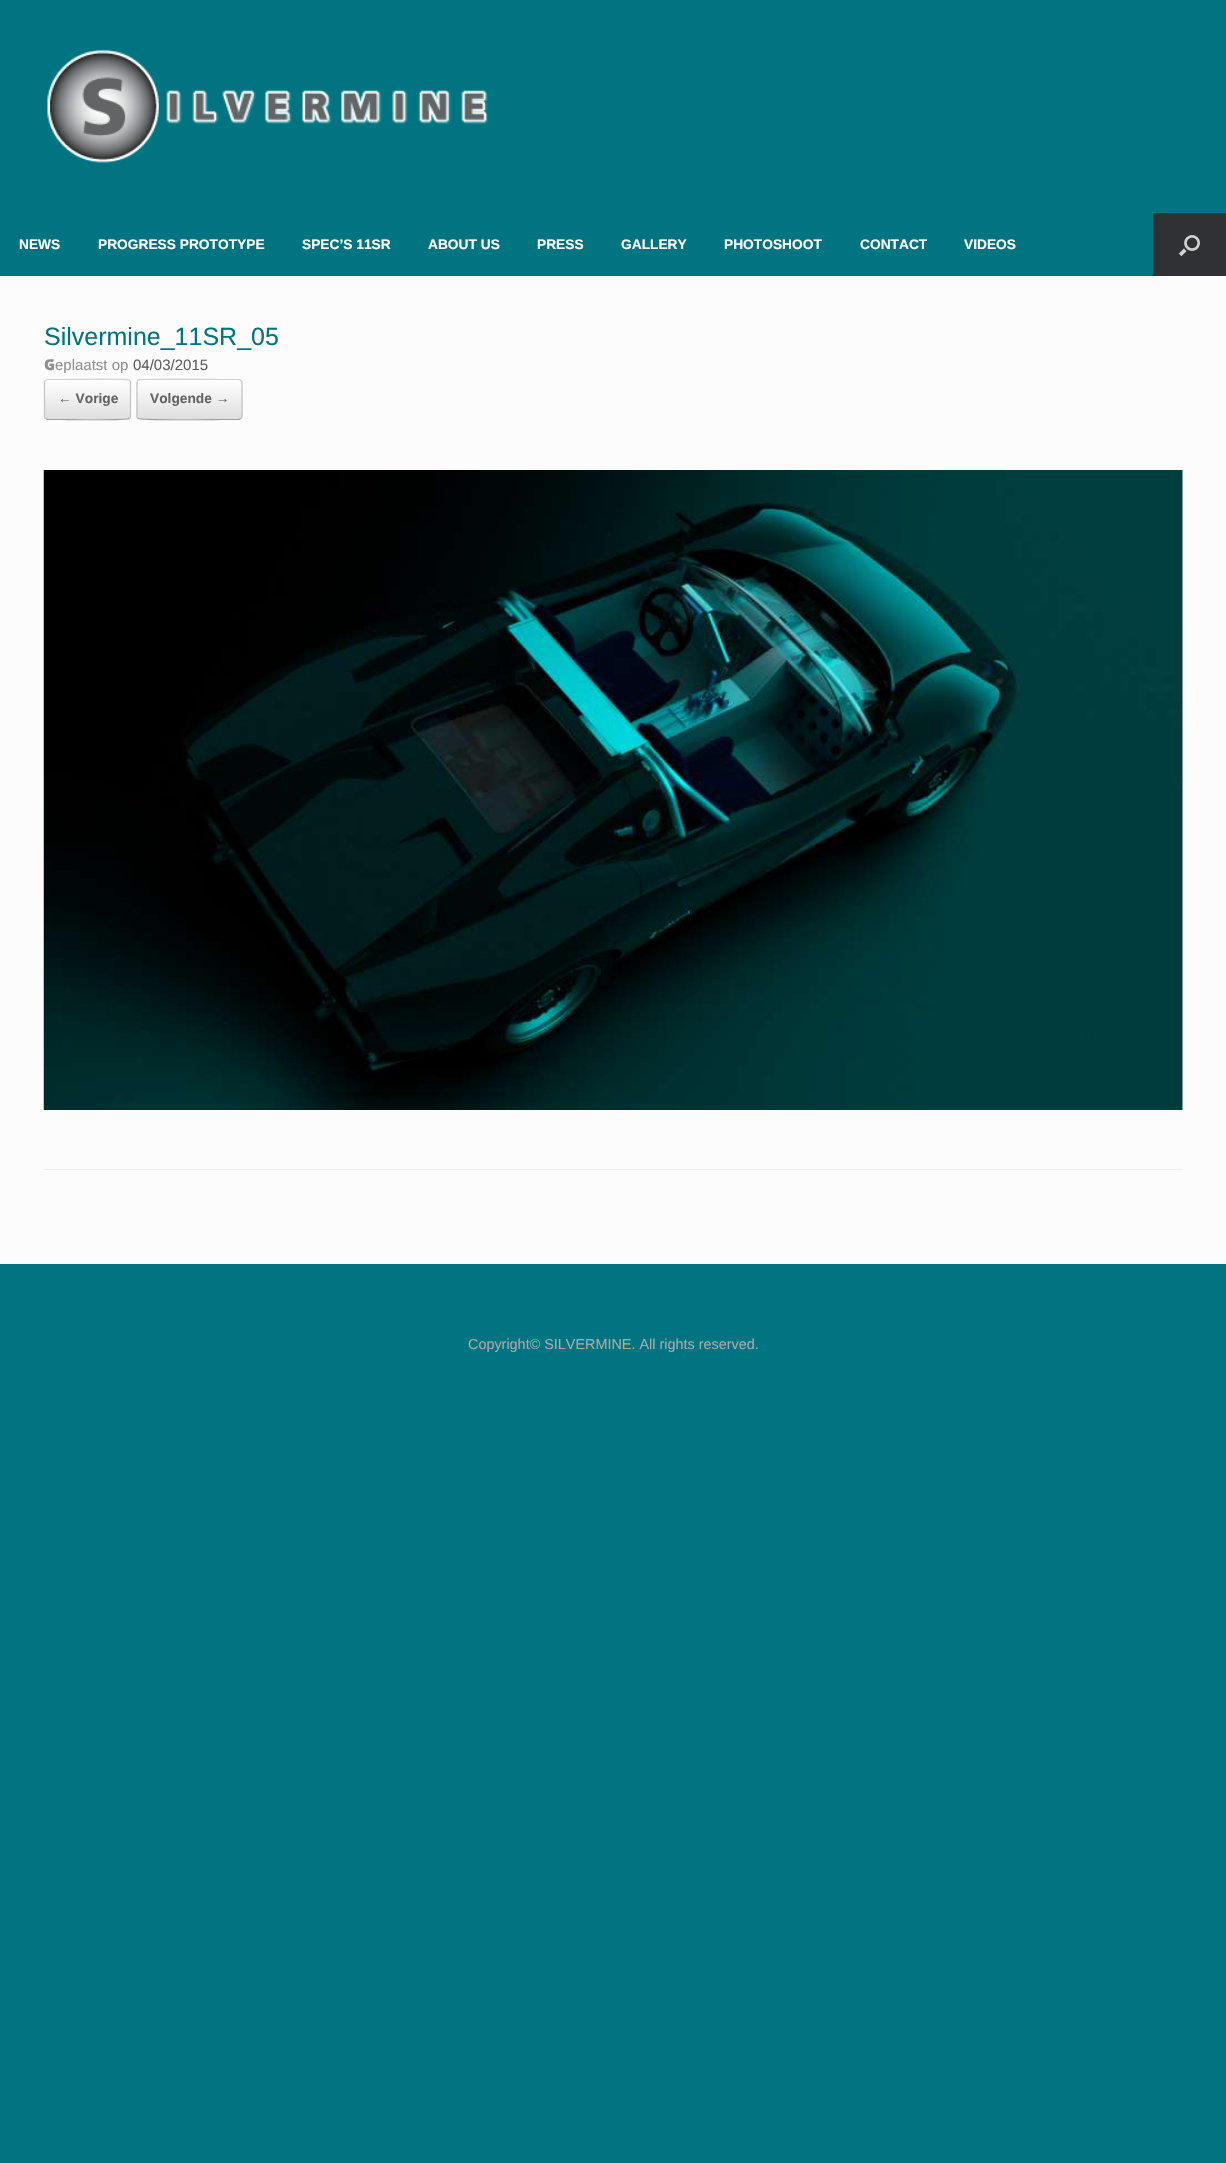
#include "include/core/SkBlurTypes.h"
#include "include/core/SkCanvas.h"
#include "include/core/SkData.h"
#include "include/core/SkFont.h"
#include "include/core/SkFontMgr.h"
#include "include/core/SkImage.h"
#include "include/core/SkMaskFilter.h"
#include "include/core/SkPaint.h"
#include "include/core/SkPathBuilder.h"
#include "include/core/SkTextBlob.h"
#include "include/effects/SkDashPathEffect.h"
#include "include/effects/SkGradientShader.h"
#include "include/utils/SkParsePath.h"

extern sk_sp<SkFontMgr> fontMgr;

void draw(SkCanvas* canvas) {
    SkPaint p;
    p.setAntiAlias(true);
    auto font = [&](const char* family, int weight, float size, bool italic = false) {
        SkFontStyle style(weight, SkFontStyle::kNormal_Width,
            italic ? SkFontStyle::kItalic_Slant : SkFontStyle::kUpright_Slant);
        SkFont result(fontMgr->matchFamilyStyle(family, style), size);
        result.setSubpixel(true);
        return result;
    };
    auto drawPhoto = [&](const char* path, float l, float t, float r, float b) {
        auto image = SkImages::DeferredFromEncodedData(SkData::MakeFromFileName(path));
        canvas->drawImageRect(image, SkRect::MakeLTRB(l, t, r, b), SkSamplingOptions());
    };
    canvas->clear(0xFF007481);
    drawPhoto("media/1.png", 47, 49, 488, 163);
    auto font1 = font("Liberation Sans", 700, 13.75f);
    p.setColor(0xFFFFFFFF);
    {
        const struct { const char* s; float x, y; } items[] = {
            {"NEWS", 19, 249},
            {"PROGRESS PROTOTYPE", 98, 249},
            {"SPEC’S 11SR", 302, 249},
            {"ABOUT US", 428, 249},
            {"PRESS", 537, 249},
            {"GALLERY", 621, 249},
            {"PHOTOSHOOT", 724, 249},
            {"CONTACT", 860, 249},
            {"VIDEOS", 964, 249},
        };
        for (auto [s, x, y] : items) {
            canvas->drawString(s, x, y, font1, p);
        }
    }
    p.setColor(0xFF303134);
    canvas->drawRect(SkRect::MakeLTRB(1153, 213, 1226, 276), p);
    drawPhoto("media/2.png", 1178, 235, 1200, 257);
    p.setColor(0xFFFCFCFC);
    canvas->drawRect(SkRect::MakeLTRB(0, 276, 1226, 1264), p);
    p.setColor(0xFFEEEEEE);
    canvas->drawRect(SkRect::MakeLTRB(44, 1169, 1183, 1170), p);
    auto font2 = font("Liberation Sans", 400, 25);
    p.setColor(0xFF007481);
    canvas->drawString("Silvermine_11SR_05", 44, 345, font2, p);
    auto font3 = font("Noto Sans", 900, 15);
    p.setColor(0xFF8F8F8F);
    canvas->drawString("G", 44, 370, font3, p);
    auto font4 = font("Liberation Sans", 400, 15);
    canvas->drawString("eplaatst op", 55, 370, font4, p);
    p.setColor(0xFF5E5E5E);
    canvas->drawString("04/03/2015", 133, 370, font4, p);
    canvas->save();
    canvas->clipPath(SkPathBuilder().moveTo(48, 379).lineTo(127, 379).cubicTo(129, 379, 131, 381, 131, 383).lineTo(131, 416).cubicTo(131, 418, 129, 420, 127, 420).lineTo(48, 420).cubicTo(46, 420, 44, 418, 44, 416).lineTo(44, 383).cubicTo(44, 381, 46, 379, 48, 379).close().detach(), true);
    {
        const SkColor colors[] = {0xFFDFDFDF, 0xFFFFFFFF};
        const float stops[] = {0, 1};
        const SkPoint ends[] = {{45, 419}, {45, 380}};
        p.setShader(SkGradientShader::MakeLinear(ends, colors, stops, 2, SkTileMode::kClamp));
        p.setAlpha(255);
    }
    canvas->drawRect(SkRect::MakeLTRB(44, 380, 131, 419), p);
    {
        const SkColor colors[] = {0xFFDFDFDF, 0xFFFFFFFF};
        const float stops[] = {0, 1};
        const SkPoint ends[] = {{45, 458}, {45, 419}};
        p.setShader(SkGradientShader::MakeLinear(ends, colors, stops, 2, SkTileMode::kClamp));
        p.setAlpha(255);
    }
    canvas->drawRect(SkRect::MakeLTRB(44, 419, 131, 420), p);
    canvas->restore();
    p.setStyle(SkPaint::kStroke_Style);
    p.setStrokeWidth(1.2f);
    p.setShader(nullptr);
    p.setColor(0xFFD2D2D2);
    canvas->drawPath(SkPathBuilder().moveTo(45.5f, 380.5f).lineTo(47.5f, 379.5f).lineTo(61, 379.5f).cubicTo(68.5f, 379.5f, 127.5f, 378.5f, 129.5f, 380).lineTo(129.5f, 380.5f).detach(), p);
    p.setColor(0xFFC3C3C3);
    canvas->drawPath(SkPathBuilder().moveTo(129.5f, 380.5f).cubicTo(130.5f, 381, 130.5f, 381.5f, 130.5f, 382.5f).lineTo(130.5f, 416).cubicTo(130.5f, 417, 130.5f, 418, 129.5f, 418.5f).detach(), p);
    p.setColor(0xFF9F9F9F);
    canvas->drawPath(SkPathBuilder().moveTo(129.5f, 418.5f).cubicTo(127.5f, 420.5f, 68.5f, 419.5f, 61, 419.5f).lineTo(47.5f, 419.5f).lineTo(45.5f, 418.5f).detach(), p);
    p.setColor(0xFFC3C3C3);
    canvas->drawPath(SkPathBuilder().moveTo(45.5f, 418.5f).cubicTo(44.5f, 418, 44.5f, 417, 44.5f, 416).lineTo(44.5f, 382.5f).cubicTo(44.5f, 381.5f, 44.5f, 381, 45.5f, 380.5f).detach(), p);
    p.setStyle(SkPaint::kFill_Style);
    p.setColor(0xFF646464);
    canvas->drawString("← Vorige", 58, 403, font1, p);
    canvas->save();
    canvas->clipPath(SkPathBuilder().moveTo(140, 379).lineTo(239, 379).cubicTo(241, 379, 243, 381, 243, 383).lineTo(243, 416).cubicTo(243, 418, 241, 420, 239, 420).lineTo(140, 420).cubicTo(138, 420, 136, 418, 136, 416).lineTo(136, 383).cubicTo(136, 381, 138, 379, 140, 379).close().detach(), true);
    {
        const SkColor colors[] = {0xFFDFDFDF, 0xFFFFFFFF};
        const float stops[] = {0, 1};
        const SkPoint ends[] = {{138, 380}, {138, 341}};
        p.setShader(SkGradientShader::MakeLinear(ends, colors, stops, 2, SkTileMode::kClamp));
        p.setAlpha(255);
    }
    canvas->drawRect(SkRect::MakeLTRB(136, 379, 243, 380), p);
    {
        const SkColor colors[] = {0xFFDFDFDF, 0xFFFFFFFF};
        const float stops[] = {0, 1};
        const SkPoint ends[] = {{138, 419}, {138, 380}};
        p.setShader(SkGradientShader::MakeLinear(ends, colors, stops, 2, SkTileMode::kClamp));
        p.setAlpha(255);
    }
    canvas->drawRect(SkRect::MakeLTRB(136, 380, 243, 419), p);
    {
        const SkColor colors[] = {0xFFDFDFDF, 0xFFFFFFFF};
        const float stops[] = {0, 1};
        const SkPoint ends[] = {{138, 458}, {138, 419}};
        p.setShader(SkGradientShader::MakeLinear(ends, colors, stops, 2, SkTileMode::kClamp));
        p.setAlpha(255);
    }
    canvas->drawRect(SkRect::MakeLTRB(136, 419, 243, 420), p);
    canvas->restore();
    p.setStyle(SkPaint::kStroke_Style);
    p.setShader(nullptr);
    p.setColor(0xFFD2D2D2);
    canvas->drawPath(SkPathBuilder().moveTo(138, 380.5f).lineTo(138, 380).cubicTo(140, 378.5f, 213.5f, 379.5f, 222.5f, 379.5f).lineTo(239, 379.5f).lineTo(241, 380.5f).detach(), p);
    p.setColor(0xFFC3C3C3);
    canvas->drawPath(SkPathBuilder().moveTo(241, 380.5f).cubicTo(241.5f, 381, 242, 381.5f, 242, 382.5f).lineTo(242, 416).cubicTo(242, 417, 241.5f, 418, 241, 418.5f).detach(), p);
    p.setColor(0xFF9F9F9F);
    canvas->drawPath(SkPathBuilder().moveTo(241, 418.5f).lineTo(239, 419.5f).lineTo(222.5f, 419.5f).cubicTo(213.5f, 419.5f, 140, 420.5f, 138, 418.5f).detach(), p);
    p.setColor(0xFFC3C3C3);
    canvas->drawPath(SkPathBuilder().moveTo(138, 418.5f).cubicTo(137, 418, 137, 417, 137, 416).lineTo(137, 382.5f).cubicTo(137, 381.5f, 137, 381, 138, 380.5f).detach(), p);
    p.setStyle(SkPaint::kFill_Style);
    p.setColor(0xFF646464);
    canvas->drawString("Volgende →", 150, 403, font1, p);
    drawPhoto("media/3.png", 43, 470, 1183, 1110);
    auto font5 = font("Liberation Sans", 400, 14.4f);
    p.setColor(0xFFAAAAAA);
    canvas->drawString("Copyright© SILVERMINE. All rights reserved.", 468, 1349, font5, p);
}
